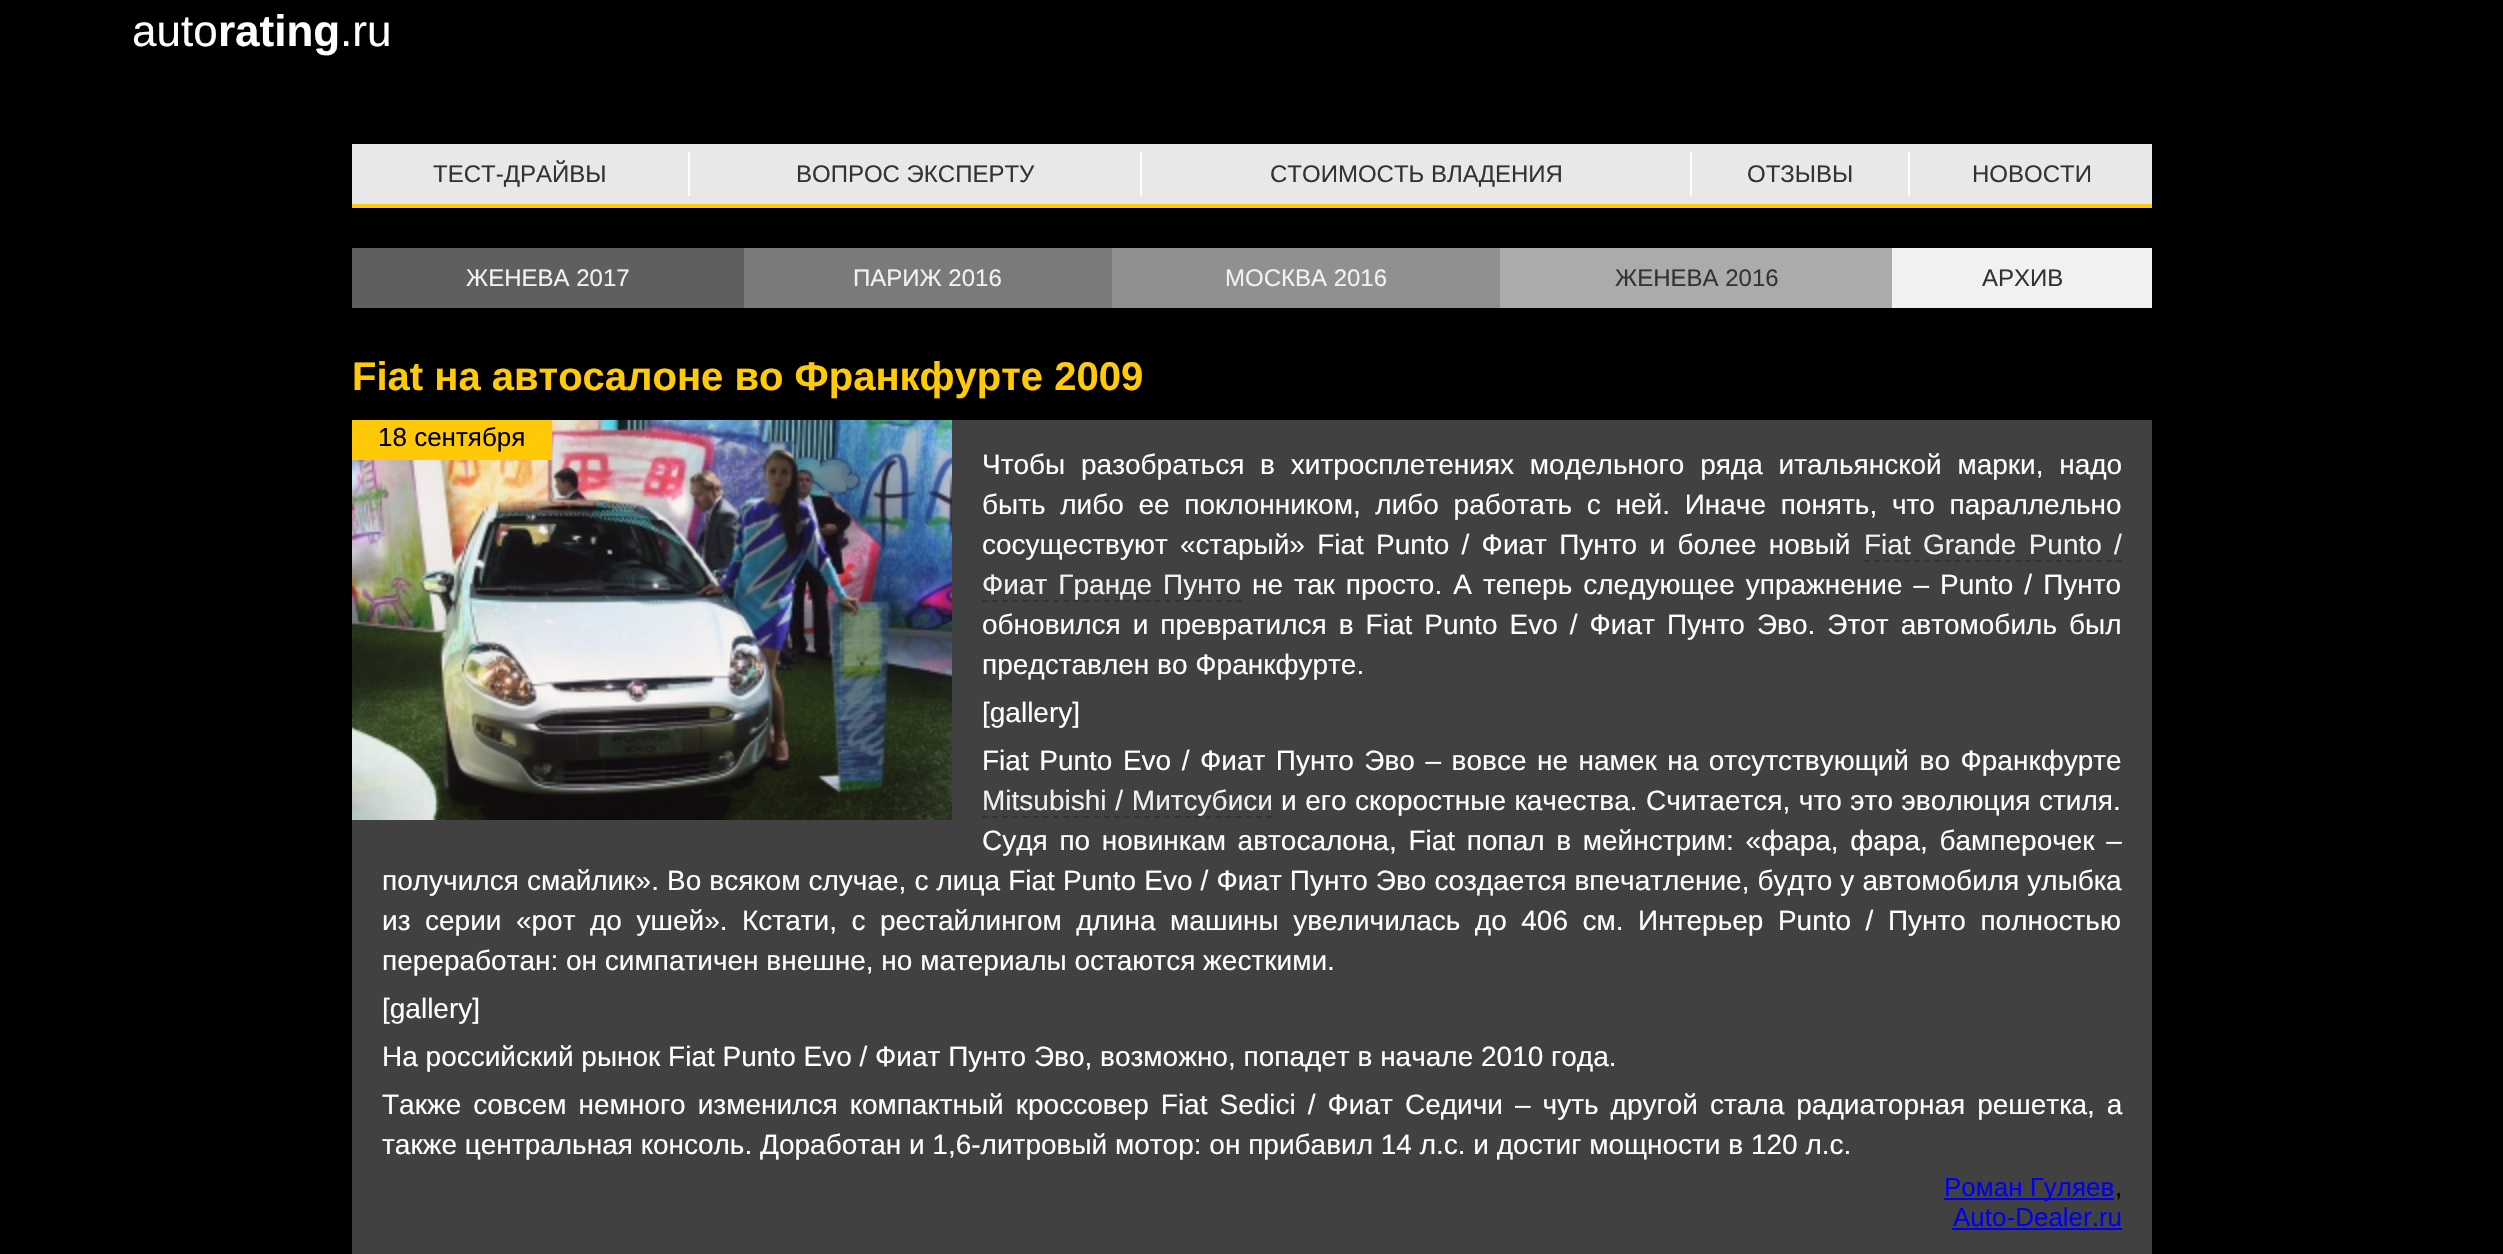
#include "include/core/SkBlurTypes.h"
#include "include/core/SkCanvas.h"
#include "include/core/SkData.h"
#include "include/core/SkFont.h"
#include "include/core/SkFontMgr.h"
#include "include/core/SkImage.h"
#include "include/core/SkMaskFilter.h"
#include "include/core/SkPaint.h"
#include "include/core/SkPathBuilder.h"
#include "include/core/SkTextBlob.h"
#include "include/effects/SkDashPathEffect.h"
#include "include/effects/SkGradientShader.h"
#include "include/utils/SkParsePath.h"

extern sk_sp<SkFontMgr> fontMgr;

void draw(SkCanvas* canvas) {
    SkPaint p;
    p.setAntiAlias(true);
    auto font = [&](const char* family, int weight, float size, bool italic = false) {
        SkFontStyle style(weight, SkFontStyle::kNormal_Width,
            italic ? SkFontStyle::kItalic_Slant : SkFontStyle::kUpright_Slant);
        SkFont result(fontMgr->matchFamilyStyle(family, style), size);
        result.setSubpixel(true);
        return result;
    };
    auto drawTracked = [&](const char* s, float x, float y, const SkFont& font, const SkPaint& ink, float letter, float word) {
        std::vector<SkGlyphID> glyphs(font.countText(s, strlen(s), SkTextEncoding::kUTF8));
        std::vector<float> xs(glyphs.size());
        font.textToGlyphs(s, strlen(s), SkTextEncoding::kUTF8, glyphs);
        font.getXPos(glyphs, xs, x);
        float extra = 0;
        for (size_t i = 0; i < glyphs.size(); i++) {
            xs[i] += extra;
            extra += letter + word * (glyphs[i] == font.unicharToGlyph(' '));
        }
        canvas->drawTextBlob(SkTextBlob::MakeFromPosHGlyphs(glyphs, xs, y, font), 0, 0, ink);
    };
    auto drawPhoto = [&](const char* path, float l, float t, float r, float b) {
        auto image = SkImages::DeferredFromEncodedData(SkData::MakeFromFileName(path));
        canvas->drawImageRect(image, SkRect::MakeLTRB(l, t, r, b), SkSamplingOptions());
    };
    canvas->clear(0xFF000000);
    auto font1 = font("Liberation Sans", 400, 44);
    p.setColor(0xFFFFFFFF);
    canvas->drawString("auto", 132, 46, font1, p);
    auto font2 = font("Liberation Sans", 700, 44);
    canvas->drawString("rating", 218, 46, font2, p);
    canvas->drawString(".ru", 340, 46, font1, p);
    p.setColor(0xFFE8E8E8);
    canvas->drawRect(SkRect::MakeLTRB(352, 144, 2152, 204), p);
    p.setColor(0xFFFFC907);
    canvas->drawRect(SkRect::MakeLTRB(352, 204, 2152, 208), p);
    auto font3 = font("Liberation Sans", 400, 24);
    p.setColor(0xFF333333);
    canvas->drawString("ТЕСТ-ДРАЙВЫ", 433, 182, font3, p);
    p.setColor(0xFFFFFFFF);
    canvas->drawRect(SkRect::MakeLTRB(688, 152, 690, 196), p);
    p.setColor(0xFF333333);
    canvas->drawString("ВОПРОС ЭКСПЕРТУ", 796, 182, font3, p);
    p.setColor(0xFFFFFFFF);
    canvas->drawRect(SkRect::MakeLTRB(1140, 152, 1142, 196), p);
    p.setColor(0xFF333333);
    canvas->drawString("СТОИМОСТЬ ВЛАДЕНИЯ", 1270, 182, font3, p);
    p.setColor(0xFFFFFFFF);
    canvas->drawRect(SkRect::MakeLTRB(1690, 152, 1692, 196), p);
    p.setColor(0xFF333333);
    canvas->drawString("ОТЗЫВЫ", 1747, 182, font3, p);
    p.setColor(0xFFFFFFFF);
    canvas->drawRect(SkRect::MakeLTRB(1908, 152, 1910, 196), p);
    p.setColor(0xFF333333);
    canvas->drawString("НОВОСТИ", 1972, 182, font3, p);
    p.setColor(0xFFABABAB);
    canvas->drawRect(SkRect::MakeLTRB(1500, 248, 1892, 308), p);
    p.setColor(0xFF5F5F5F);
    canvas->drawRect(SkRect::MakeLTRB(352, 248, 744, 308), p);
    p.setColor(0xFFF1F1F2);
    canvas->drawString("ЖЕНЕВА 2017", 466, 286, font3, p);
    p.setColor(0xFF7A7A7A);
    canvas->drawRect(SkRect::MakeLTRB(744, 248, 1112, 308), p);
    p.setColor(0xFFF1F1F2);
    canvas->drawString("ПАРИЖ 2016", 853, 286, font3, p);
    p.setColor(0xFF909090);
    canvas->drawRect(SkRect::MakeLTRB(1112, 248, 1500, 308), p);
    p.setColor(0xFFF1F1F2);
    canvas->drawString("МОСКВА 2016", 1225, 286, font3, p);
    p.setColor(0xFF333333);
    canvas->drawString("ЖЕНЕВА 2016", 1615, 286, font3, p);
    p.setColor(0xFFF1F1F2);
    canvas->drawRect(SkRect::MakeLTRB(1892, 248, 2152, 308), p);
    p.setColor(0xFF333333);
    canvas->drawString("АРХИВ", 1982, 286, font3, p);
    auto font4 = font("Liberation Sans", 700, 40);
    p.setColor(0xFFFFCA08);
    canvas->drawString("Fiat на автосалоне во Франкфурте 2009", 352, 390, font4, p);
    p.setColor(0xFF414141);
    canvas->drawRect(SkRect::MakeLTRB(352, 420, 2152, 1254), p);
    drawPhoto("media/1.png", 352, 420, 952, 820);
    p.setColor(0xFFFFC907);
    canvas->drawRect(SkRect::MakeLTRB(352, 420, 552, 460), p);
    auto font5 = font("Liberation Sans", 400, 26);
    p.setColor(0xFF000000);
    canvas->drawString("18 сентября", 378, 446, font5, p);
    auto font6 = font("Liberation Sans", 400, 28);
    p.setColor(0xFFFFFFFF);
    drawTracked("Чтобы разобраться в хитросплетениях модельного ряда итальянской марки, надо", 982, 474, font6, p, 0, 8);
    drawTracked("быть либо ее поклонником, либо работать с ней. Иначе понять, что параллельно", 982, 514, font6, p, 0, 6.9f);
    drawTracked("сосуществуют «старый» Fiat Punto / Фиат Пунто и более новый", 982, 554, font6, p, 0, 4.5f);
    p.setColor(0xFFF1F1F2);
    drawTracked("Fiat Grande Punto /", 1864, 554, font6, p, 0, 4.5f);
    p.setStyle(SkPaint::kStroke_Style);
    p.setStrokeWidth(2);
    p.setColor(0xFF333333);
    p.setPathEffect(SkDashPathEffect::Make({{6, 4.08f}}, 0));
    canvas->drawPath(SkPathBuilder().moveTo(1864, 561).lineTo(2122, 561).detach(), p);
    p.setPathEffect(nullptr);
    p.setStyle(SkPaint::kFill_Style);
    p.setColor(0xFFF1F1F2);
    drawTracked("Фиат Гранде Пунто", 982, 594, font6, p, 0, 3.25f);
    p.setStyle(SkPaint::kStroke_Style);
    p.setColor(0xFF333333);
    p.setPathEffect(SkDashPathEffect::Make({{6, 4.16f}}, 0));
    canvas->drawPath(SkPathBuilder().moveTo(982, 601).lineTo(1242, 601).detach(), p);
    p.setPathEffect(nullptr);
    p.setStyle(SkPaint::kFill_Style);
    p.setColor(0xFFFFFFFF);
    drawTracked("не так просто. А теперь следующее упражнение – Punto / Пунто", 1252, 594, font6, p, 0, 3.25f);
    drawTracked("обновился и превратился в Fiat Punto Evo / Фиат Пунто Эво. Этот автомобиль был", 982, 634, font6, p, 0, 4.25f);
    canvas->drawString("представлен во Франкфурте.", 982, 674, font6, p);
    canvas->drawString("[gallery]", 982, 722, font6, p);
    drawTracked("Fiat Punto Evo / Фиат Пунто Эво – вовсе не намек на отсутствующий во Франкфурте", 982, 770, font6, p, 0, 2.75f);
    p.setColor(0xFFF1F1F2);
    drawTracked("Mitsubishi / Митсубиси", 982, 810, font6, p, 0, 1);
    p.setStyle(SkPaint::kStroke_Style);
    p.setColor(0xFF333333);
    p.setPathEffect(SkDashPathEffect::Make({{6, 4.14f}}, 0));
    canvas->drawPath(SkPathBuilder().moveTo(982, 817).lineTo(1272, 817).detach(), p);
    p.setPathEffect(nullptr);
    p.setStyle(SkPaint::kFill_Style);
    p.setColor(0xFFFFFFFF);
    drawTracked("и его скоростные качества. Считается, что это эволюция стиля.", 1281, 810, font6, p, 0, 0.75f);
    drawTracked("Судя по новинкам автосалона, Fiat попал в мейнстрим: «фара, фара, бамперочек –", 982, 850, font6, p, 0, 3.9f);
    drawTracked("получился смайлик». Во всяком случае, с лица Fiat Punto Evo / Фиат Пунто Эво создается впечатление, будто у автомобиля улыбка", 382, 890, font6, p, 0, 0.3f);
    drawTracked("из серии «рот до ушей». Кстати, с рестайлингом длина машины увеличилась до 406 см. Интерьер Punto / Пунто полностью", 382, 930, font6, p, 0, 6.75f);
    {
        const struct { const char* s; float x, y; } items[] = {
            {"переработан: он симпатичен внешне, но материалы остаются жесткими.", 382, 970},
            {"[gallery]", 382, 1018},
            {"На российский рынок Fiat Punto Evo / Фиат Пунто Эво, возможно, попадет в начале 2010 года.", 382, 1066},
        };
        for (auto [s, x, y] : items) {
            canvas->drawString(s, x, y, font6, p);
        }
    }
    drawTracked("Также совсем немного изменился компактный кроссовер Fiat Sedici / Фиат Седичи – чуть другой стала радиаторная решетка, а", 382, 1114, font6, p, 0, 4.25f);
    canvas->drawString("также центральная консоль. Доработан и 1,6-литровый мотор: он прибавил 14 л.с. и достиг мощности в 120 л.с.", 382, 1154, font6, p);
    p.setColor(0xFF0000EE);
    canvas->drawRect(SkRect::MakeLTRB(1944, 1198, 2114, 1200), p);
    canvas->drawString("Роман Гуляев", 1944, 1196, font5, p);
    p.setColor(0xFF000000);
    canvas->drawString(",", 2115, 1196, font5, p);
    p.setColor(0xFF0000EE);
    canvas->drawString("Auto-Dealer.ru", 1953, 1226, font5, p);
    canvas->drawRect(SkRect::MakeLTRB(1952, 1228, 2122, 1230), p);
}
